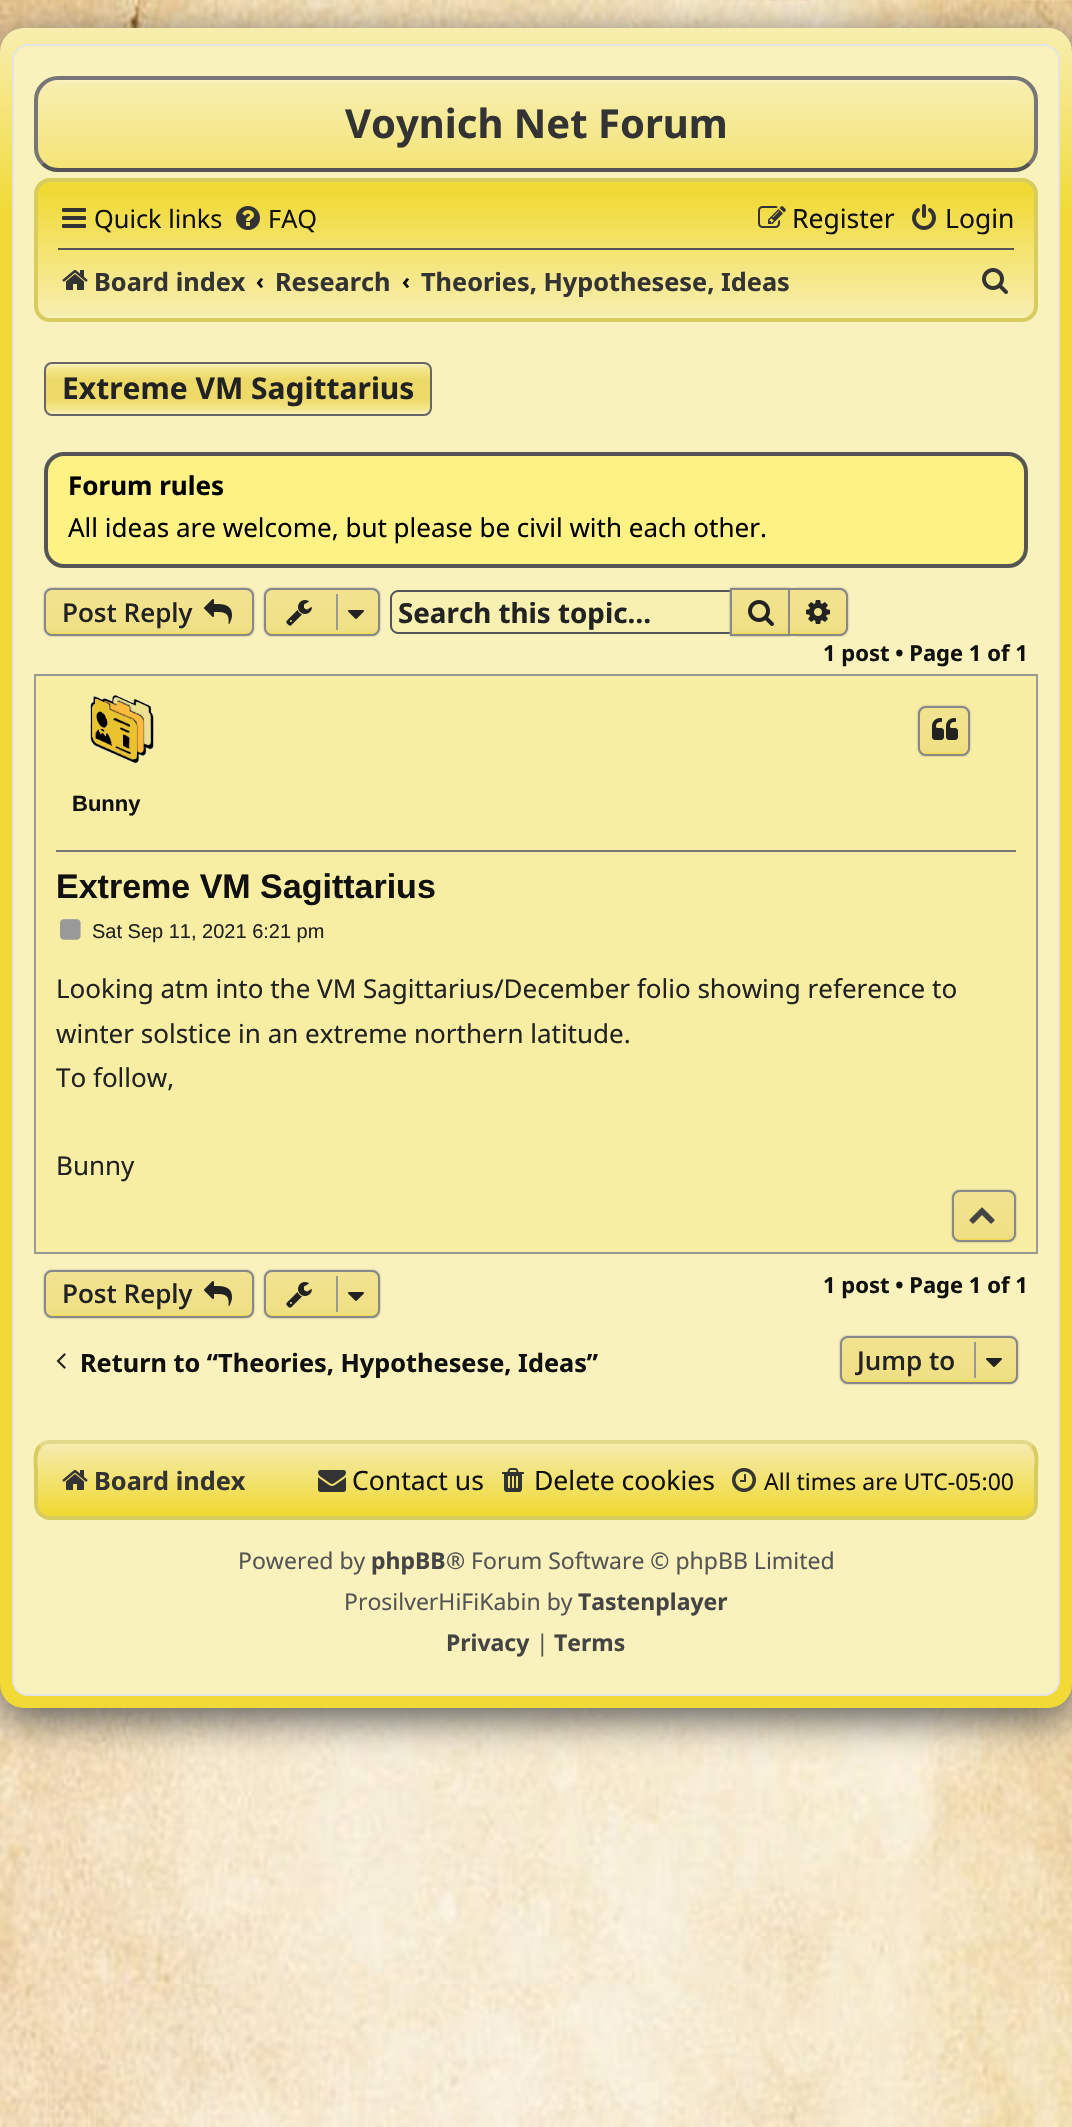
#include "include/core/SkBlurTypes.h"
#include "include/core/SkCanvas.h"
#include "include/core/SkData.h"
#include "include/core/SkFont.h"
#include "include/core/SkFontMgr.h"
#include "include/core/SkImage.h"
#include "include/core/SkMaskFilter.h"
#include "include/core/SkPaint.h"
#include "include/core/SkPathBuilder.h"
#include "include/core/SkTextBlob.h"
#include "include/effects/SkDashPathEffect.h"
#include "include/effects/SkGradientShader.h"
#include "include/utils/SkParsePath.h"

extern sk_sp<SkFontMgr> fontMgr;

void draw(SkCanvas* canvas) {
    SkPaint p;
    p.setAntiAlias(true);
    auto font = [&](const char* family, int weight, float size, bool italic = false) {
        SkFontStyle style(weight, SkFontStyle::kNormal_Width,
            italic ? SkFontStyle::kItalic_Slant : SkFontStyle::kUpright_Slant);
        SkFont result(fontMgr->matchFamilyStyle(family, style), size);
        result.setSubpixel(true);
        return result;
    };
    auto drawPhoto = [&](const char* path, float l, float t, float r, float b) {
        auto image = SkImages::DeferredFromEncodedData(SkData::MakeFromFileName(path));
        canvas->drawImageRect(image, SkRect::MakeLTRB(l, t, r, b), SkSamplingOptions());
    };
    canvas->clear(0xFFFFFFFF);
    drawPhoto("media/1.png", 0, 0, 1072, 2127);
    drawPhoto("media/2.png", 0, 28, 1072, 1764);
    p.setColor(0xFF555555);
    p.setMaskFilter(SkMaskFilter::MakeBlur(kNormal_SkBlurStyle, 20));
    canvas->drawRoundRect(SkRect::MakeLTRB(0, 38, 1072, 1718), 24, 24, p);
    p.setMaskFilter(nullptr);
    {
        const SkColor colors[] = {0xFFF9F3C0, 0xFFF7EEAF, 0xFFF1DA36, 0xFFF1DA36};
        const float stops[] = {0, 0, 0.11f, 1};
        const SkPoint ends[] = {{536, 28}, {536, 1708}};
        p.setShader(SkGradientShader::MakeLinear(ends, colors, stops, 4, SkTileMode::kClamp));
        p.setAlpha(255);
    }
    canvas->drawRoundRect(SkRect::MakeLTRB(0, 28, 1072, 1708), 24, 24, p);
    p.setShader(nullptr);
    p.setColor(0xFFFAF2BC);
    canvas->drawRoundRect(SkRect::MakeLTRB(13, 45, 1059, 1695), 15, 15, p);
    p.setStyle(SkPaint::kStroke_Style);
    p.setStrokeWidth(2);
    p.setColor(0xFFE4E4E4);
    canvas->drawRoundRect(SkRect::MakeLTRB(13, 45, 1059, 1695), 15, 15, p);
    canvas->save();
    canvas->clipPath(SkPathBuilder().moveTo(58, 76).lineTo(1014, 76).cubicTo(1027.5f, 76, 1038, 86.5f, 1038, 100).lineTo(1038, 148).cubicTo(1038, 161.5f, 1027.5f, 172, 1014, 172).lineTo(58, 172).cubicTo(44.5f, 172, 34, 161.5f, 34, 148).lineTo(34, 100).cubicTo(34, 86.5f, 44.5f, 76, 58, 76).close().detach(), true);
    p.setStyle(SkPaint::kFill_Style);
    {
        const SkColor colors[] = {0xFFF9F3C0, 0xFFF7EEAF, 0xFFF1DA36};
        const float stops[] = {0, 0.02f, 1};
        const SkPoint ends[] = {{536, 80}, {536, 264}};
        p.setShader(SkGradientShader::MakeLinear(ends, colors, stops, 3, SkTileMode::kClamp));
        p.setAlpha(255);
    }
    canvas->drawRect(SkRect::MakeLTRB(34, 80, 1038, 168), p);
    canvas->restore();
    p.setStyle(SkPaint::kStroke_Style);
    p.setStrokeWidth(4);
    p.setShader(nullptr);
    p.setColor(0xFF555555);
    canvas->drawPath(SkPathBuilder().moveTo(1029.5f, 163.5f).cubicTo(1025.5f, 167.5f, 1020, 170, 1014, 170).lineTo(58, 170).cubicTo(52, 170, 46.5f, 167.5f, 42.5f, 163.5f).detach(), p);
    p.setColor(0xFF777777);
    canvas->drawPath(SkPathBuilder().moveTo(42.5f, 163.5f).cubicTo(38.5f, 159.5f, 36, 154, 36, 148).lineTo(36, 100).cubicTo(36, 94, 38.5f, 88.5f, 42.5f, 84.5f).cubicTo(46.5f, 80.5f, 52, 78, 58, 78).lineTo(1014, 78).cubicTo(1020, 78, 1025.5f, 80.5f, 1029.5f, 84.5f).cubicTo(1033.5f, 88.5f, 1036, 94, 1036, 100).lineTo(1036, 148).cubicTo(1036, 154, 1033.5f, 159.5f, 1029.5f, 163.5f).detach(), p);
    auto font1 = font("Noto Sans", 700, 40);
    p.setStyle(SkPaint::kFill_Style);
    p.setColor(0xFF333333);
    canvas->drawString("Voynich Net Forum", 345, 138, font1, p);
    canvas->save();
    canvas->clipPath(SkPathBuilder().moveTo(50, 178).lineTo(1022, 178).cubicTo(1031, 178, 1038, 185, 1038, 194).lineTo(1038, 306).cubicTo(1038, 315, 1031, 322, 1022, 322).lineTo(50, 322).cubicTo(41, 322, 34, 315, 34, 306).lineTo(34, 194).cubicTo(34, 185, 41, 178, 50, 178).close().detach(), true);
    {
        const SkColor colors[] = {0xFFF1DA36, 0xFFF1DA36, 0xFFF7EEAF, 0xFFF9F3C0};
        const float stops[] = {0, 0.08f, 0.98f, 1};
        const SkPoint ends[] = {{536, 182}, {536, 318}};
        p.setShader(SkGradientShader::MakeLinear(ends, colors, stops, 4, SkTileMode::kClamp));
        p.setAlpha(255);
    }
    canvas->drawRect(SkRect::MakeLTRB(38, 182, 1034, 318), p);
    canvas->restore();
    p.setStyle(SkPaint::kStroke_Style);
    p.setShader(nullptr);
    p.setColor(0xFFD8CC5F);
    canvas->drawRoundRect(SkRect::MakeLTRB(36, 180, 1036, 320), 14, 14, p);
    drawPhoto("media/3.png", 62, 208, 86, 228);
    auto font2 = font("Noto Sans", 400, 25.3f);
    p.setStyle(SkPaint::kFill_Style);
    p.setColor(0xFF101010);
    canvas->drawString("Quick links", 94, 228, font2, p);
    drawPhoto("media/4.png", 236, 206, 260, 230);
    canvas->drawString("FAQ", 268, 228, font2, p);
    drawPhoto("media/5.png", 758, 206, 786, 228);
    auto font3 = font("Noto Sans", 400, 26.5f);
    canvas->drawString("Register", 792, 228, font3, p);
    drawPhoto("media/6.png", 912, 204, 936, 230);
    canvas->drawString("Login", 945, 228, font3, p);
    p.setColor(0xFF555555);
    canvas->drawRect(SkRect::MakeLTRB(58, 248, 1014, 250), p);
    drawPhoto("media/7.png", 62, 270, 88, 290);
    auto font4 = font("Noto Sans", 700, 25.3f);
    p.setColor(0xFF333333);
    canvas->drawString("Board index", 94, 291, font4, p);
    auto font5 = font("Noto Sans", 700, 22);
    p.setColor(0xFF101010);
    canvas->drawString("‹", 256, 289, font5, p);
    p.setColor(0xFF333333);
    canvas->drawString("Research", 275, 291, font4, p);
    p.setColor(0xFF101010);
    canvas->drawString("‹", 402, 289, font5, p);
    p.setColor(0xFF333333);
    canvas->drawString("Theories, Hypothesese, Ideas", 421, 291, font4, p);
    drawPhoto("media/8.png", 982, 268, 1008, 294);
    canvas->save();
    canvas->clipPath(SkPathBuilder().moveTo(52, 362).lineTo(424, 362).cubicTo(428.5f, 362, 432, 365.5f, 432, 370).lineTo(432, 408).cubicTo(432, 412.5f, 428.5f, 416, 424, 416).lineTo(52, 416).cubicTo(47.5f, 416, 44, 412.5f, 44, 408).lineTo(44, 370).cubicTo(44, 365.5f, 47.5f, 362, 52, 362).close().detach(), true);
    {
        const SkColor colors[] = {0xFFF9F3C0, 0xFFF4E78D, 0xFFEDD968, 0xFFEDD968, 0xFFF4E78D, 0xFFF9F3C0};
        const float stops[] = {0, 0.09f, 0.31f, 0.68f, 0.91f, 1};
        const SkPoint ends[] = {{238, 364}, {238, 414}};
        p.setShader(SkGradientShader::MakeLinear(ends, colors, stops, 6, SkTileMode::kClamp));
        p.setAlpha(255);
    }
    canvas->drawRect(SkRect::MakeLTRB(46, 364, 430, 414), p);
    canvas->restore();
    p.setStyle(SkPaint::kStroke_Style);
    p.setStrokeWidth(2);
    p.setShader(nullptr);
    p.setColor(0xFF666666);
    canvas->drawRoundRect(SkRect::MakeLTRB(45, 363, 431, 415), 7, 7, p);
    auto font6 = font("Noto Sans", 700, 30);
    p.setStyle(SkPaint::kFill_Style);
    p.setColor(0xFF222222);
    canvas->drawString("Extreme VM Sagittarius", 62, 399, font6, p);
    p.setColor(0xFFFFF284);
    canvas->drawRoundRect(SkRect::MakeLTRB(46, 454, 1026, 566), 18, 18, p);
    p.setStyle(SkPaint::kStroke_Style);
    p.setStrokeWidth(4);
    p.setColor(0xFF555555);
    canvas->drawRoundRect(SkRect::MakeLTRB(46, 454, 1026, 566), 18, 18, p);
    auto font7 = font("Noto Sans", 700, 26);
    p.setStyle(SkPaint::kFill_Style);
    p.setColor(0xFF000000);
    canvas->drawString("Forum rules", 68, 495, font7, p);
    auto font8 = font("Noto Sans", 400, 26);
    canvas->drawString("All ideas are welcome, but please be civil with each other.", 68, 537, font8, p);
    p.setColor(0xFF999999);
    p.setMaskFilter(SkMaskFilter::MakeBlur(kNormal_SkBlurStyle, 1));
    canvas->drawRoundRect(SkRect::MakeLTRB(44, 588, 254, 636), 8, 8, p);
    p.setMaskFilter(nullptr);
    canvas->save();
    canvas->clipPath(SkPathBuilder().moveTo(52, 588).lineTo(246, 588).cubicTo(250.5f, 588, 254, 591.5f, 254, 596).lineTo(254, 628).cubicTo(254, 632.5f, 250.5f, 636, 246, 636).lineTo(52, 636).cubicTo(47.5f, 636, 44, 632.5f, 44, 628).lineTo(44, 596).cubicTo(44, 591.5f, 47.5f, 588, 52, 588).close().detach(), true);
    {
        const SkColor colors[] = {0xFFF7EFB7, 0xFFF2E391, 0xFFEFDF83, 0xFFF1DA36};
        const float stops[] = {0, 0.01f, 0.96f, 1};
        const SkPoint ends[] = {{149, 590}, {149, 634}};
        p.setShader(SkGradientShader::MakeLinear(ends, colors, stops, 4, SkTileMode::kClamp));
        p.setAlpha(255);
    }
    canvas->drawRect(SkRect::MakeLTRB(46, 590, 252, 634), p);
    canvas->restore();
    p.setStyle(SkPaint::kStroke_Style);
    p.setStrokeWidth(2);
    p.setShader(nullptr);
    p.setColor(0xFF888888);
    canvas->drawRoundRect(SkRect::MakeLTRB(45, 589, 253, 635), 7, 7, p);
    auto font9 = font("Open Sans", 600, 26);
    p.setStyle(SkPaint::kFill_Style);
    p.setColor(0xFF222222);
    canvas->drawString("Post Reply", 62, 622, font9, p);
    drawPhoto("media/9.png", 204, 599, 232, 624);
    p.setColor(0xFF999999);
    p.setMaskFilter(SkMaskFilter::MakeBlur(kNormal_SkBlurStyle, 1));
    canvas->drawRoundRect(SkRect::MakeLTRB(264, 588, 380, 636), 8, 8, p);
    p.setMaskFilter(nullptr);
    canvas->save();
    canvas->clipPath(SkPathBuilder().moveTo(272, 588).lineTo(372, 588).cubicTo(376.5f, 588, 380, 591.5f, 380, 596).lineTo(380, 628).cubicTo(380, 632.5f, 376.5f, 636, 372, 636).lineTo(272, 636).cubicTo(267.5f, 636, 264, 632.5f, 264, 628).lineTo(264, 596).cubicTo(264, 591.5f, 267.5f, 588, 272, 588).close().detach(), true);
    {
        const SkColor colors[] = {0xFFF7EFB7, 0xFFF2E391, 0xFFEFDF83, 0xFFF1DA36};
        const float stops[] = {0, 0.01f, 0.96f, 1};
        const SkPoint ends[] = {{322, 590}, {322, 634}};
        p.setShader(SkGradientShader::MakeLinear(ends, colors, stops, 4, SkTileMode::kClamp));
        p.setAlpha(255);
    }
    canvas->drawRect(SkRect::MakeLTRB(266, 590, 378, 634), p);
    canvas->restore();
    p.setStyle(SkPaint::kStroke_Style);
    p.setShader(nullptr);
    p.setColor(0xFF888888);
    canvas->drawRoundRect(SkRect::MakeLTRB(265, 589, 379, 635), 7, 7, p);
    drawPhoto("media/10.png", 286, 600, 312, 626);
    p.setStyle(SkPaint::kFill_Style);
    p.setColor(0xFF999999);
    canvas->drawRect(SkRect::MakeLTRB(336, 594, 338, 630), p);
    drawPhoto("media/11.png", 348, 610, 364, 619);
    p.setColor(0xFFF8F0B1);
    canvas->drawPath(SkPathBuilder().moveTo(398, 592).lineTo(730, 592).lineTo(730, 632).lineTo(398, 632).cubicTo(394.5f, 632, 392, 629.5f, 392, 626).lineTo(392, 598).cubicTo(392, 594.5f, 394.5f, 592, 398, 592).close().detach(), p);
    p.setColor(0xFF555555);
    canvas->drawPath(SkPathBuilder(SkPathFillType::kEvenOdd).moveTo(398, 590).lineTo(730, 590).lineTo(730, 634).lineTo(398, 634).cubicTo(394, 634, 390, 630, 390, 626).lineTo(390, 598).cubicTo(390, 594, 394, 590, 398, 590).close().moveTo(398, 592).lineTo(730, 592).lineTo(730, 632).lineTo(398, 632).cubicTo(395, 632, 392, 629, 392, 626).lineTo(392, 598).cubicTo(392, 595, 395, 592, 398, 592).close().detach(), p);
    auto font10 = font("Noto Sans", 700, 27.75f);
    p.setColor(0xFF222222);
    canvas->drawString("Search this topic…", 398, 623, font10, p);
    p.setColor(0xFF999999);
    p.setMaskFilter(SkMaskFilter::MakeBlur(kNormal_SkBlurStyle, 1));
    canvas->drawRect(SkRect::MakeLTRB(730, 588, 790, 636), p);
    p.setMaskFilter(nullptr);
    {
        const SkColor colors[] = {0xFFF7EFB7, 0xFFF2E391, 0xFFEFDF83, 0xFFF1DA36};
        const float stops[] = {0, 0.01f, 0.96f, 1};
        const SkPoint ends[] = {{760, 590}, {760, 634}};
        p.setShader(SkGradientShader::MakeLinear(ends, colors, stops, 4, SkTileMode::kClamp));
        p.setAlpha(255);
    }
    canvas->drawRect(SkRect::MakeLTRB(732, 590, 788, 634), p);
    p.setStyle(SkPaint::kStroke_Style);
    p.setShader(nullptr);
    p.setColor(0xFF888888);
    canvas->drawRect(SkRect::MakeLTRB(731, 589, 789, 635), p);
    drawPhoto("media/12.png", 748, 600, 774, 626);
    p.setStyle(SkPaint::kFill_Style);
    p.setColor(0xFF999999);
    p.setMaskFilter(SkMaskFilter::MakeBlur(kNormal_SkBlurStyle, 1));
    canvas->drawRoundRect(SkRect::MakeLTRB(790, 588, 848, 636), 8, 8, p);
    p.setMaskFilter(nullptr);
    {
        const SkColor colors[] = {0xFFF7EFB7, 0xFFF2E391, 0xFFEFDF83, 0xFFF1DA36};
        const float stops[] = {0, 0.01f, 0.96f, 1};
        const SkPoint ends[] = {{818, 590}, {818, 634}};
        p.setShader(SkGradientShader::MakeLinear(ends, colors, stops, 4, SkTileMode::kClamp));
        p.setAlpha(255);
    }
    canvas->drawPath(SkPathBuilder().moveTo(790, 590).lineTo(840, 590).cubicTo(843.5f, 590, 846, 592.5f, 846, 596).lineTo(846, 628).cubicTo(846, 631.5f, 843.5f, 634, 840, 634).lineTo(790, 634).close().detach(), p);
    p.setShader(nullptr);
    p.setColor(0xFF888888);
    canvas->drawPath(SkPathBuilder(SkPathFillType::kEvenOdd).moveTo(790, 588).lineTo(840, 588).cubicTo(844, 588, 848, 592, 848, 596).lineTo(848, 628).cubicTo(848, 632, 844, 636, 840, 636).lineTo(790, 636).close().moveTo(790, 590).lineTo(840, 590).cubicTo(843, 590, 846, 593, 846, 596).lineTo(846, 628).cubicTo(846, 631, 843, 634, 840, 634).lineTo(790, 634).close().detach(), p);
    drawPhoto("media/13.png", 806, 600, 830, 624);
    p.setColor(0xFF101010);
    canvas->drawString("1 post • Page 1 of 1", 823, 661, font5, p);
    p.setColor(0xFFF7EDA3);
    canvas->drawRect(SkRect::MakeLTRB(35, 675, 1037, 1253), p);
    p.setStyle(SkPaint::kStroke_Style);
    p.setColor(0xFF999999);
    canvas->drawRect(SkRect::MakeLTRB(35, 675, 1037, 1253), p);
    p.setStyle(SkPaint::kFill_Style);
    p.setColor(0xFF777777);
    canvas->drawRect(SkRect::MakeLTRB(56, 850, 1016, 852), p);
    drawPhoto("media/14.png", 90, 695, 154, 764);
    auto font11 = font("Liberation Sans", 700, 22);
    p.setColor(0xFF101010);
    canvas->drawString("Bunny", 72, 811, font11, p);
    p.setColor(0xFF999999);
    p.setMaskFilter(SkMaskFilter::MakeBlur(kNormal_SkBlurStyle, 1));
    canvas->drawRoundRect(SkRect::MakeLTRB(918, 706, 970, 756), 8, 8, p);
    p.setMaskFilter(nullptr);
    canvas->save();
    canvas->clipPath(SkPathBuilder().moveTo(926, 706).lineTo(962, 706).cubicTo(966.5f, 706, 970, 709.5f, 970, 714).lineTo(970, 748).cubicTo(970, 752.5f, 966.5f, 756, 962, 756).lineTo(926, 756).cubicTo(921.5f, 756, 918, 752.5f, 918, 748).lineTo(918, 714).cubicTo(918, 709.5f, 921.5f, 706, 926, 706).close().detach(), true);
    {
        const SkColor colors[] = {0xFFF7EFB7, 0xFFF2E391, 0xFFEFDF83, 0xFFF1DA36};
        const float stops[] = {0, 0.01f, 0.96f, 1};
        const SkPoint ends[] = {{944, 708}, {944, 754}};
        p.setShader(SkGradientShader::MakeLinear(ends, colors, stops, 4, SkTileMode::kClamp));
        p.setAlpha(255);
    }
    canvas->drawRect(SkRect::MakeLTRB(920, 708, 968, 754), p);
    canvas->restore();
    p.setStyle(SkPaint::kStroke_Style);
    p.setShader(nullptr);
    p.setColor(0xFF888888);
    canvas->drawRoundRect(SkRect::MakeLTRB(919, 707, 969, 755), 7, 7, p);
    drawPhoto("media/15.png", 932, 718, 958, 740);
    auto font12 = font("Liberation Sans", 700, 34);
    p.setStyle(SkPaint::kFill_Style);
    p.setColor(0xFF101010);
    canvas->drawString("Extreme VM Sagittarius", 56, 898, font12, p);
    drawPhoto("media/16.png", 60, 919, 81, 940);
    auto font13 = font("Liberation Sans", 400, 20);
    p.setColor(0xFF222222);
    canvas->drawString("Sat Sep 11, 2021 6:21 pm", 92, 938, font13, p);
    {
        const struct { const char* s; float x, y; } items[] = {
            {"Looking atm into the VM Sagittarius/December folio showing reference to", 56, 998},
            {"winter solstice in an extreme northern latitude.", 56, 1043},
            {"To follow,", 56, 1087},
            {"Bunny", 56, 1175},
        };
        for (auto [s, x, y] : items) {
            canvas->drawString(s, x, y, font8, p);
        }
    }
    p.setColor(0xFF999999);
    p.setMaskFilter(SkMaskFilter::MakeBlur(kNormal_SkBlurStyle, 1));
    canvas->drawRoundRect(SkRect::MakeLTRB(952, 1190, 1016, 1242), 8, 8, p);
    p.setMaskFilter(nullptr);
    canvas->save();
    canvas->clipPath(SkPathBuilder().moveTo(960, 1190).lineTo(1008, 1190).cubicTo(1012.5f, 1190, 1016, 1193.5f, 1016, 1198).lineTo(1016, 1234).cubicTo(1016, 1238.5f, 1012.5f, 1242, 1008, 1242).lineTo(960, 1242).cubicTo(955.5f, 1242, 952, 1238.5f, 952, 1234).lineTo(952, 1198).cubicTo(952, 1193.5f, 955.5f, 1190, 960, 1190).close().detach(), true);
    {
        const SkColor colors[] = {0xFFF7EFB7, 0xFFF2E391, 0xFFEFDF83, 0xFFF1DA36};
        const float stops[] = {0, 0.01f, 0.96f, 1};
        const SkPoint ends[] = {{984, 1192}, {984, 1240}};
        p.setShader(SkGradientShader::MakeLinear(ends, colors, stops, 4, SkTileMode::kClamp));
        p.setAlpha(255);
    }
    canvas->drawRect(SkRect::MakeLTRB(954, 1192, 1014, 1240), p);
    canvas->restore();
    p.setStyle(SkPaint::kStroke_Style);
    p.setShader(nullptr);
    p.setColor(0xFF888888);
    canvas->drawRoundRect(SkRect::MakeLTRB(953, 1191, 1015, 1241), 7, 7, p);
    drawPhoto("media/17.png", 969, 1207, 995, 1224);
    p.setStyle(SkPaint::kFill_Style);
    p.setColor(0xFF999999);
    p.setMaskFilter(SkMaskFilter::MakeBlur(kNormal_SkBlurStyle, 1));
    canvas->drawRoundRect(SkRect::MakeLTRB(44, 1270, 254, 1318), 8, 8, p);
    p.setMaskFilter(nullptr);
    canvas->save();
    canvas->clipPath(SkPathBuilder().moveTo(52, 1270).lineTo(246, 1270).cubicTo(250.5f, 1270, 254, 1273.5f, 254, 1278).lineTo(254, 1310).cubicTo(254, 1314.5f, 250.5f, 1318, 246, 1318).lineTo(52, 1318).cubicTo(47.5f, 1318, 44, 1314.5f, 44, 1310).lineTo(44, 1278).cubicTo(44, 1273.5f, 47.5f, 1270, 52, 1270).close().detach(), true);
    {
        const SkColor colors[] = {0xFFF7EFB7, 0xFFF2E391, 0xFFEFDF83, 0xFFF1DA36};
        const float stops[] = {0, 0.01f, 0.96f, 1};
        const SkPoint ends[] = {{149, 1272}, {149, 1316}};
        p.setShader(SkGradientShader::MakeLinear(ends, colors, stops, 4, SkTileMode::kClamp));
        p.setAlpha(255);
    }
    canvas->drawRect(SkRect::MakeLTRB(46, 1272, 252, 1316), p);
    canvas->restore();
    p.setStyle(SkPaint::kStroke_Style);
    p.setShader(nullptr);
    p.setColor(0xFF888888);
    canvas->drawRoundRect(SkRect::MakeLTRB(45, 1271, 253, 1317), 7, 7, p);
    p.setStyle(SkPaint::kFill_Style);
    p.setColor(0xFF222222);
    canvas->drawString("Post Reply", 62, 1303, font9, p);
    drawPhoto("media/9.png", 204, 1281, 232, 1306);
    p.setColor(0xFF999999);
    p.setMaskFilter(SkMaskFilter::MakeBlur(kNormal_SkBlurStyle, 1));
    canvas->drawRoundRect(SkRect::MakeLTRB(264, 1270, 380, 1318), 8, 8, p);
    p.setMaskFilter(nullptr);
    canvas->save();
    canvas->clipPath(SkPathBuilder().moveTo(272, 1270).lineTo(372, 1270).cubicTo(376.5f, 1270, 380, 1273.5f, 380, 1278).lineTo(380, 1310).cubicTo(380, 1314.5f, 376.5f, 1318, 372, 1318).lineTo(272, 1318).cubicTo(267.5f, 1318, 264, 1314.5f, 264, 1310).lineTo(264, 1278).cubicTo(264, 1273.5f, 267.5f, 1270, 272, 1270).close().detach(), true);
    {
        const SkColor colors[] = {0xFFF7EFB7, 0xFFF2E391, 0xFFEFDF83, 0xFFF1DA36};
        const float stops[] = {0, 0.01f, 0.96f, 1};
        const SkPoint ends[] = {{322, 1272}, {322, 1316}};
        p.setShader(SkGradientShader::MakeLinear(ends, colors, stops, 4, SkTileMode::kClamp));
        p.setAlpha(255);
    }
    canvas->drawRect(SkRect::MakeLTRB(266, 1272, 378, 1316), p);
    canvas->restore();
    p.setStyle(SkPaint::kStroke_Style);
    p.setShader(nullptr);
    p.setColor(0xFF888888);
    canvas->drawRoundRect(SkRect::MakeLTRB(265, 1271, 379, 1317), 7, 7, p);
    drawPhoto("media/10.png", 286, 1282, 312, 1308);
    p.setStyle(SkPaint::kFill_Style);
    p.setColor(0xFF999999);
    canvas->drawRect(SkRect::MakeLTRB(336, 1276, 338, 1312), p);
    drawPhoto("media/11.png", 348, 1292, 364, 1301);
    p.setColor(0xFF101010);
    canvas->drawString("1 post • Page 1 of 1", 823, 1293, font5, p);
    drawPhoto("media/18.png", 56, 1353, 66, 1369);
    canvas->save();
    canvas->clipRect(SkRect::MakeLTRB(44, 1346, 598, 1378));
    canvas->drawString("Return to “Theories, Hypothesese, Ideas”", 80, 1372, font4, p);
    canvas->restore();
    p.setColor(0xFF999999);
    p.setMaskFilter(SkMaskFilter::MakeBlur(kNormal_SkBlurStyle, 1));
    canvas->drawRoundRect(SkRect::MakeLTRB(840, 1336, 1018, 1384), 8, 8, p);
    p.setMaskFilter(nullptr);
    canvas->save();
    canvas->clipPath(SkPathBuilder().moveTo(848, 1336).lineTo(1010, 1336).cubicTo(1014.5f, 1336, 1018, 1339.5f, 1018, 1344).lineTo(1018, 1376).cubicTo(1018, 1380.5f, 1014.5f, 1384, 1010, 1384).lineTo(848, 1384).cubicTo(843.5f, 1384, 840, 1380.5f, 840, 1376).lineTo(840, 1344).cubicTo(840, 1339.5f, 843.5f, 1336, 848, 1336).close().detach(), true);
    {
        const SkColor colors[] = {0xFFF7EFB7, 0xFFF2E391, 0xFFEFDF83, 0xFFF1DA36};
        const float stops[] = {0, 0.01f, 0.96f, 1};
        const SkPoint ends[] = {{929, 1338}, {929, 1382}};
        p.setShader(SkGradientShader::MakeLinear(ends, colors, stops, 4, SkTileMode::kClamp));
        p.setAlpha(255);
    }
    canvas->drawRect(SkRect::MakeLTRB(842, 1338, 1016, 1382), p);
    canvas->restore();
    p.setStyle(SkPaint::kStroke_Style);
    p.setShader(nullptr);
    p.setColor(0xFF888888);
    canvas->drawRoundRect(SkRect::MakeLTRB(841, 1337, 1017, 1383), 7, 7, p);
    p.setStyle(SkPaint::kFill_Style);
    p.setColor(0xFF222222);
    canvas->drawString("Jump to", 857, 1370, font9, p);
    p.setColor(0xFF999999);
    canvas->drawRect(SkRect::MakeLTRB(974, 1342, 976, 1378), p);
    drawPhoto("media/11.png", 986, 1358, 1002, 1367);
    canvas->save();
    canvas->clipPath(SkPathBuilder().moveTo(50, 1440).lineTo(1022, 1440).cubicTo(1031, 1440, 1038, 1447, 1038, 1456).lineTo(1038, 1504).cubicTo(1038, 1513, 1031, 1520, 1022, 1520).lineTo(50, 1520).cubicTo(41, 1520, 34, 1513, 34, 1504).lineTo(34, 1456).cubicTo(34, 1447, 41, 1440, 50, 1440).close().detach(), true);
    {
        const SkColor colors[] = {0xFFF7EFB7, 0xFFF4EBAD, 0xFFF1DA36, 0xFFF1DA36};
        const float stops[] = {0, 0.02f, 0.95f, 1};
        const SkPoint ends[] = {{536, 1444}, {536, 1516}};
        p.setShader(SkGradientShader::MakeLinear(ends, colors, stops, 4, SkTileMode::kClamp));
        p.setAlpha(255);
    }
    canvas->drawRect(SkRect::MakeLTRB(38, 1444, 1034, 1516), p);
    canvas->restore();
    p.setStyle(SkPaint::kStroke_Style);
    p.setStrokeWidth(4);
    p.setShader(nullptr);
    p.setColor(0xFFE2DA8B);
    canvas->drawPath(SkPathBuilder().moveTo(40, 1446).cubicTo(42.5f, 1443.5f, 46.5f, 1442, 50, 1442).lineTo(1022, 1442).cubicTo(1025.5f, 1442, 1029.5f, 1443.5f, 1032, 1446).detach(), p);
    p.setColor(0xFFD8CC5F);
    canvas->drawPath(SkPathBuilder().moveTo(1032, 1446).cubicTo(1038.5f, 1452.5f, 1036, 1464, 1036, 1472).lineTo(1036, 1504).cubicTo(1036, 1511.5f, 1029.5f, 1518, 1022, 1518).lineTo(50, 1518).cubicTo(42.5f, 1518, 36, 1511.5f, 36, 1504).lineTo(36, 1472).cubicTo(36, 1464, 33.5f, 1452.5f, 40, 1446).detach(), p);
    drawPhoto("media/19.png", 62, 1470, 88, 1490);
    p.setStyle(SkPaint::kFill_Style);
    p.setColor(0xFF333333);
    canvas->drawString("Board index", 94, 1490, font4, p);
    drawPhoto("media/20.png", 318, 1470, 346, 1492);
    p.setColor(0xFF101010);
    canvas->drawString("Contact us", 352, 1490, font3, p);
    drawPhoto("media/21.png", 502, 1468, 524, 1492);
    canvas->drawString("Delete cookies", 534, 1490, font3, p);
    drawPhoto("media/22.png", 732, 1468, 756, 1492);
    auto font14 = font("Noto Sans", 400, 23);
    canvas->drawString("All times are UTC-05:00", 764, 1490, font14, p);
    p.setColor(0xFF555555);
    canvas->drawString("Powered by", 238, 1569, font14, p);
    auto font15 = font("Noto Sans", 700, 23);
    p.setColor(0xFF444444);
    canvas->drawString("phpBB", 371, 1569, font15, p);
    p.setColor(0xFF555555);
    canvas->drawString("® Forum Software © phpBB Limited", 446, 1569, font14, p);
    canvas->drawString("ProsilverHiFiKabin by", 344, 1610, font14, p);
    p.setColor(0xFF444444);
    canvas->drawString("Tastenplayer", 578, 1610, font15, p);
    canvas->drawString("Privacy", 446, 1651, font15, p);
    p.setColor(0xFF555555);
    canvas->drawString("|", 536, 1651, font14, p);
    p.setColor(0xFF444444);
    canvas->drawString("Terms", 554, 1651, font15, p);
}
